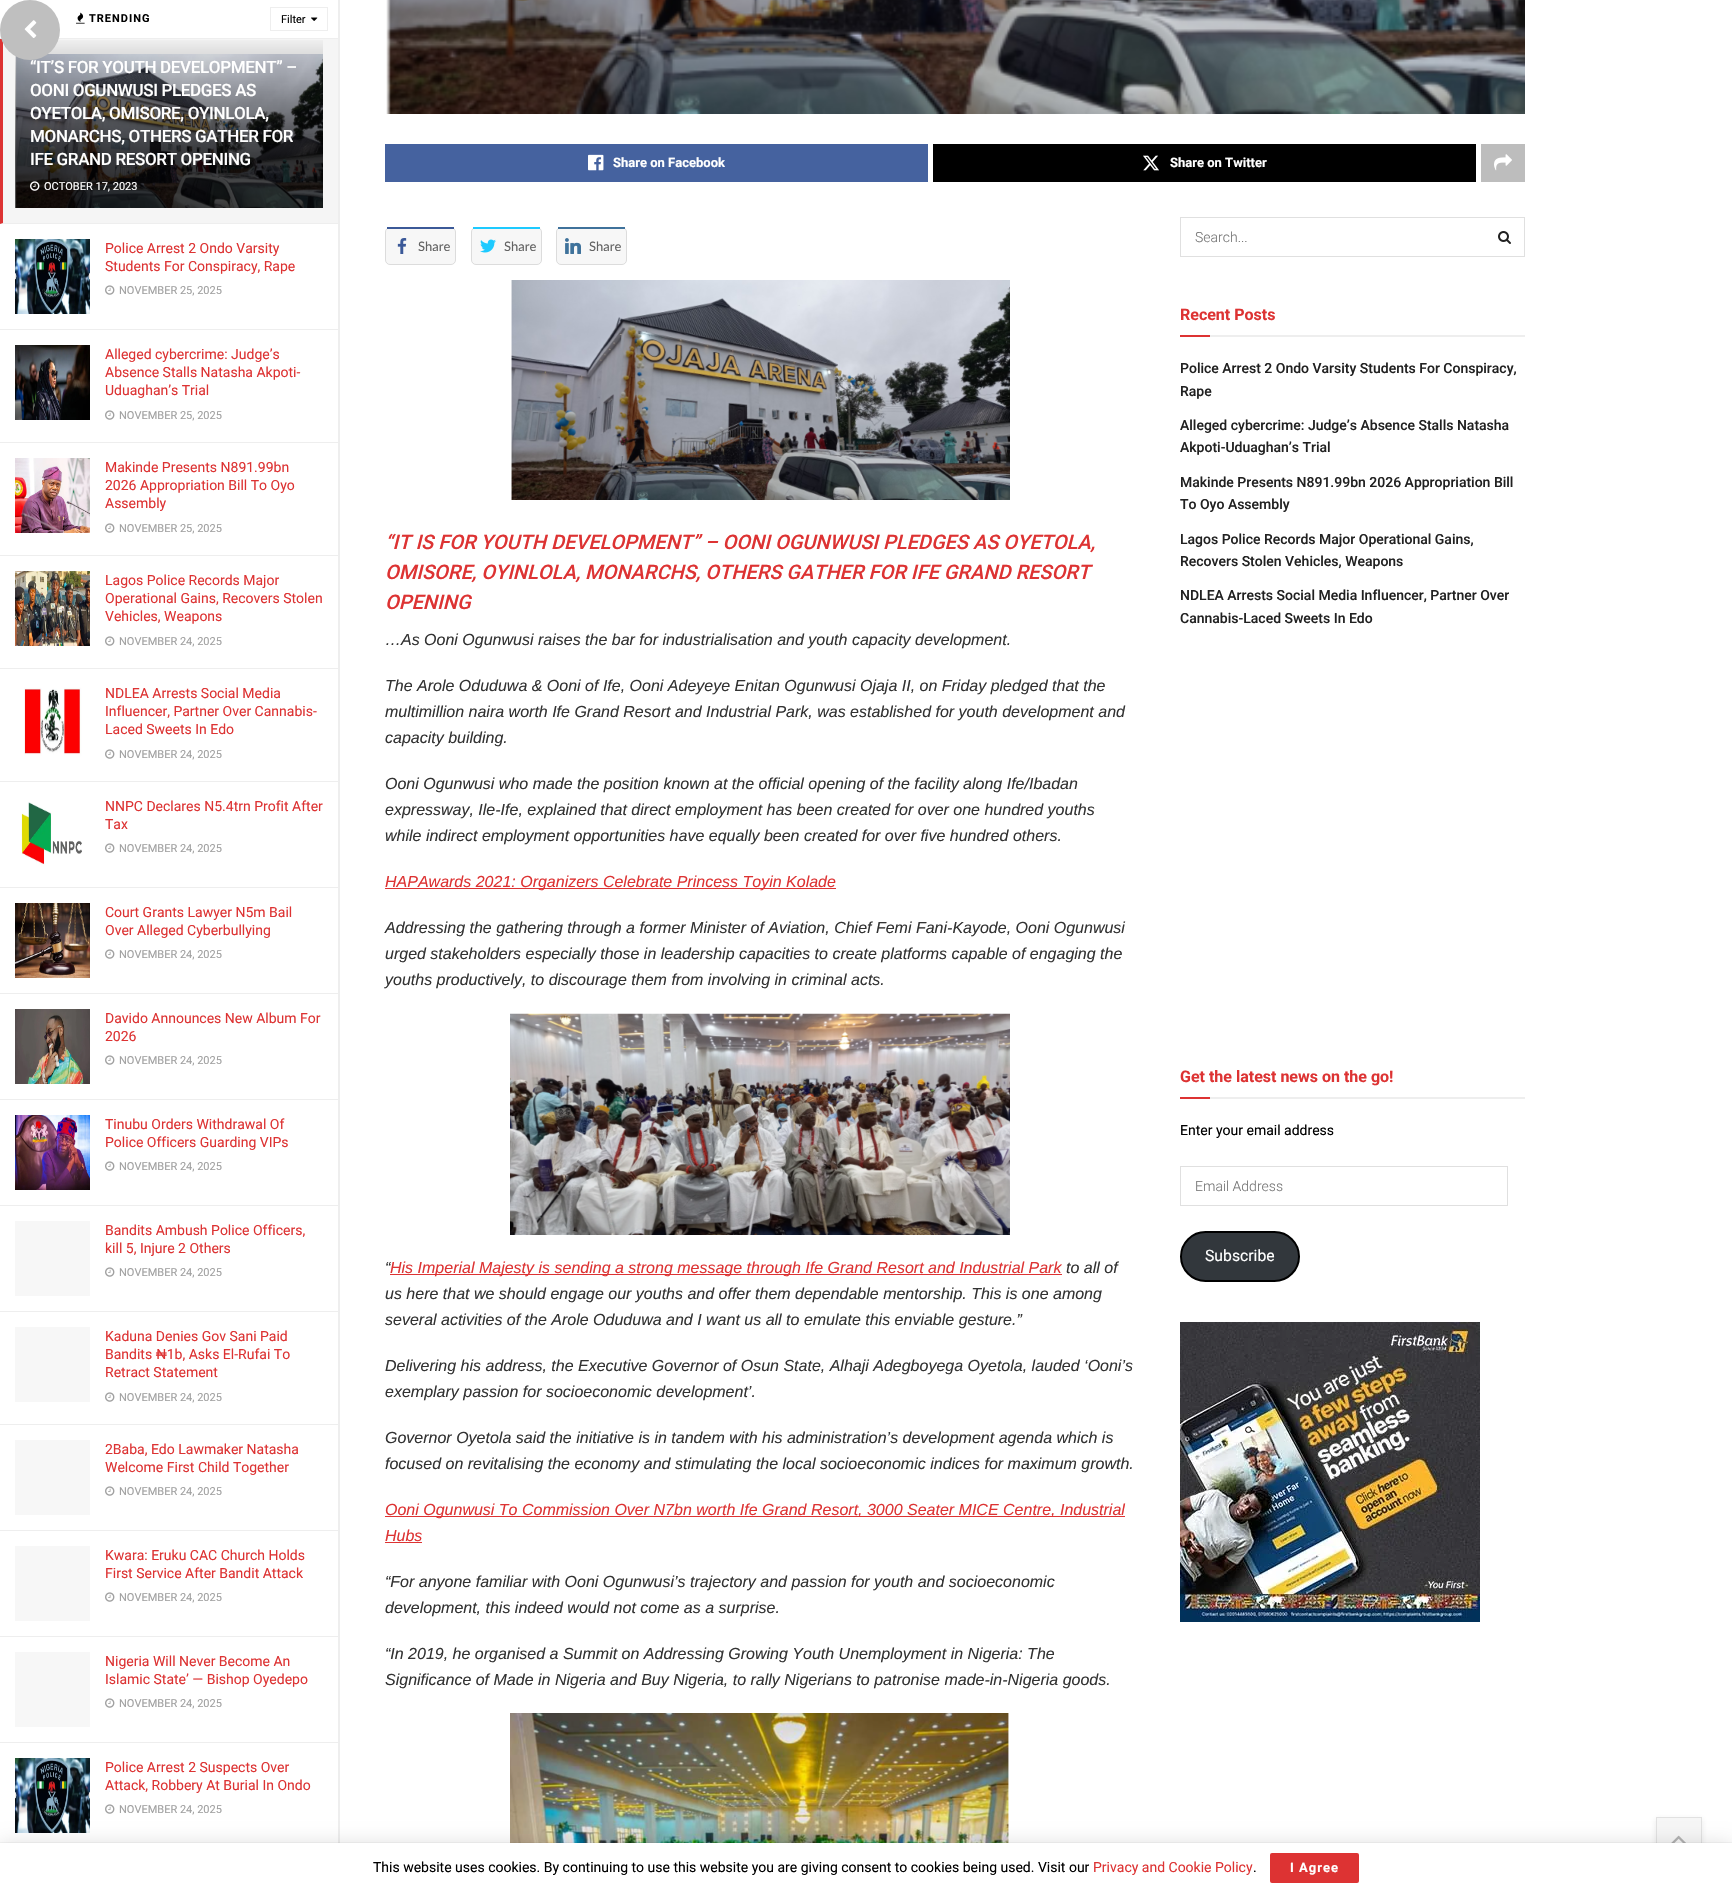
#include "include/core/SkBlurTypes.h"
#include "include/core/SkCanvas.h"
#include "include/core/SkData.h"
#include "include/core/SkFont.h"
#include "include/core/SkFontMgr.h"
#include "include/core/SkImage.h"
#include "include/core/SkMaskFilter.h"
#include "include/core/SkPaint.h"
#include "include/core/SkPathBuilder.h"
#include "include/core/SkTextBlob.h"
#include "include/effects/SkDashPathEffect.h"
#include "include/effects/SkGradientShader.h"
#include "include/utils/SkParsePath.h"

extern sk_sp<SkFontMgr> fontMgr;

void draw(SkCanvas* canvas) {
    SkPaint p;
    p.setAntiAlias(true);
    auto font = [&](const char* family, int weight, float size, bool italic = false) {
        SkFontStyle style(weight, SkFontStyle::kNormal_Width,
            italic ? SkFontStyle::kItalic_Slant : SkFontStyle::kUpright_Slant);
        SkFont result(fontMgr->matchFamilyStyle(family, style), size);
        result.setSubpixel(true);
        return result;
    };
    auto drawTracked = [&](const char* s, float x, float y, const SkFont& font, const SkPaint& ink, float letter, float word) {
        std::vector<SkGlyphID> glyphs(font.countText(s, strlen(s), SkTextEncoding::kUTF8));
        std::vector<float> xs(glyphs.size());
        font.textToGlyphs(s, strlen(s), SkTextEncoding::kUTF8, glyphs);
        font.getXPos(glyphs, xs, x);
        float extra = 0;
        for (size_t i = 0; i < glyphs.size(); i++) {
            xs[i] += extra;
            extra += letter + word * (glyphs[i] == font.unicharToGlyph(' '));
        }
        canvas->drawTextBlob(SkTextBlob::MakeFromPosHGlyphs(glyphs, xs, y, font), 0, 0, ink);
    };
    auto drawPhoto = [&](const char* path, float l, float t, float r, float b) {
        auto image = SkImages::DeferredFromEncodedData(SkData::MakeFromFileName(path));
        canvas->drawImageRect(image, SkRect::MakeLTRB(l, t, r, b), SkSamplingOptions());
    };
    canvas->clear(0xFFFFFFFF);
    p.setColor(0xFFEEEEEE);
    canvas->drawRect(SkRect::MakeLTRB(0, 38, 338, 39), p);
    p.setColor(0xFFF5F5F5);
    canvas->drawRect(SkRect::MakeLTRB(0, 39, 338, 224), p);
    p.setColor(0xFFEEEEEE);
    canvas->drawPath(SkPathBuilder().moveTo(338, 224).lineTo(0, 224).lineTo(3, 223).lineTo(338, 223).close().detach(), p);
    p.setColor(0xFFDD3333);
    canvas->drawPath(SkPathBuilder().moveTo(0, 224).lineTo(0, 39).lineTo(3, 39).lineTo(3, 223).close().detach(), p);
    drawPhoto("media/4.png", 15, 54, 323, 208);
    {
        const SkColor colors[] = {0x00000000, 0xA6000000};
        const float stops[] = {0, 0.7f};
        const SkPoint ends[] = {{169, 36}, {169, 208}};
        p.setShader(SkGradientShader::MakeLinear(ends, colors, stops, 2, SkTileMode::kClamp));
        p.setAlpha(255);
    }
    canvas->drawRect(SkRect::MakeLTRB(15, 40, 323, 208), p);
    p.setShader(nullptr);
    p.setColor(0xFFBFBFBF);
    canvas->drawCircle(30, 30, 30, p);
    drawPhoto("media/1.png", 24, 20, 37, 38);
    p.setColor(0xFFEEEEEE);
    canvas->drawRect(SkRect::MakeLTRB(338, 0, 340, 1843), p);
    drawPhoto("media/2.png", 76, 12, 85, 24);
    auto font1 = font("Roboto", 700, 11);
    p.setColor(0xFF000000);
    drawTracked("TRENDING", 89, 22, font1, p, 1, 0);
    p.setStyle(SkPaint::kStroke_Style);
    p.setStrokeWidth(1);
    p.setColor(0xFFEEEEEE);
    canvas->drawRect(SkRect::MakeLTRB(270.5f, 7.5f, 327.5f, 30.5f), p);
    auto font2 = font("Roboto", 400, 11);
    p.setStyle(SkPaint::kFill_Style);
    p.setColor(0xFF000000);
    canvas->drawString("Filter", 281, 23, font2, p);
    drawPhoto("media/3.png", 311, 17, 318, 21);
    auto font3 = font("Roboto", 500, 17);
    p.setColor(0xFFFFFFFF);
    {
        const struct { const char* s; float x, y; } items[] = {
            {"“IT’S FOR YOUTH DEVELOPMENT” –", 30, 73},
            {"OONI OGUNWUSI PLEDGES AS", 30, 96},
            {"OYETOLA, OMISORE, OYINLOLA,", 30, 119},
            {"MONARCHS, OTHERS GATHER FOR", 30, 142},
            {"IFE GRAND RESORT OPENING", 30, 165},
        };
        for (auto [s, x, y] : items) {
            drawTracked(s, x, y, font3, p, -0.35f, 0);
        }
    }
    drawPhoto("media/5.png", 30, 181, 40, 191);
    canvas->drawString("OCTOBER 17, 2023", 44, 190, font2, p);
    p.setColor(0xFFEEEEEE);
    canvas->drawRect(SkRect::MakeLTRB(0, 329, 338, 330), p);
    drawPhoto("media/6.png", 15, 239, 90, 314);
    auto font4 = font("Roboto", 400, 14);
    p.setColor(0xFFDD3333);
    canvas->drawString("Police Arrest 2 Ondo Varsity", 105, 253, font4, p);
    canvas->drawString("Students For Conspiracy, Rape", 105, 271, font4, p);
    drawPhoto("media/7.png", 105, 285, 115, 295);
    p.setColor(0xFFA0A0A0);
    canvas->drawString("NOVEMBER 25, 2025", 119, 294, font2, p);
    p.setColor(0xFFEEEEEE);
    canvas->drawRect(SkRect::MakeLTRB(0, 442, 338, 443), p);
    drawPhoto("media/8.png", 15, 345, 90, 420);
    p.setColor(0xFFDD3333);
    {
        const struct { const char* s; float x, y; } items[] = {
            {"Alleged cybercrime: Judge’s", 105, 359},
            {"Absence Stalls Natasha Akpoti-", 105, 377},
            {"Uduaghan’s Trial", 105, 395},
        };
        for (auto [s, x, y] : items) {
            canvas->drawString(s, x, y, font4, p);
        }
    }
    drawPhoto("media/7.png", 105, 410, 115, 420);
    p.setColor(0xFFA0A0A0);
    canvas->drawString("NOVEMBER 25, 2025", 119, 419, font2, p);
    p.setColor(0xFFEEEEEE);
    canvas->drawRect(SkRect::MakeLTRB(0, 555, 338, 556), p);
    drawPhoto("media/9.png", 15, 458, 90, 533);
    p.setColor(0xFFDD3333);
    {
        const struct { const char* s; float x, y; } items[] = {
            {"Makinde Presents N891.99bn", 105, 472},
            {"2026 Appropriation Bill To Oyo", 105, 490},
            {"Assembly", 105, 508},
        };
        for (auto [s, x, y] : items) {
            canvas->drawString(s, x, y, font4, p);
        }
    }
    drawPhoto("media/7.png", 105, 523, 115, 533);
    p.setColor(0xFFA0A0A0);
    canvas->drawString("NOVEMBER 25, 2025", 119, 532, font2, p);
    p.setColor(0xFFEEEEEE);
    canvas->drawRect(SkRect::MakeLTRB(0, 668, 338, 669), p);
    drawPhoto("media/10.png", 15, 571, 90, 646);
    p.setColor(0xFFDD3333);
    {
        const struct { const char* s; float x, y; } items[] = {
            {"Lagos Police Records Major", 105, 585},
            {"Operational Gains, Recovers Stolen", 105, 603},
            {"Vehicles, Weapons", 105, 621},
        };
        for (auto [s, x, y] : items) {
            canvas->drawString(s, x, y, font4, p);
        }
    }
    drawPhoto("media/7.png", 105, 636, 115, 646);
    p.setColor(0xFFA0A0A0);
    canvas->drawString("NOVEMBER 24, 2025", 119, 645, font2, p);
    p.setColor(0xFFEEEEEE);
    canvas->drawRect(SkRect::MakeLTRB(0, 781, 338, 782), p);
    drawPhoto("media/11.png", 15, 684, 90, 759);
    p.setColor(0xFFDD3333);
    {
        const struct { const char* s; float x, y; } items[] = {
            {"NDLEA Arrests Social Media", 105, 698},
            {"Influencer, Partner Over Cannabis-", 105, 716},
            {"Laced Sweets In Edo", 105, 734},
        };
        for (auto [s, x, y] : items) {
            canvas->drawString(s, x, y, font4, p);
        }
    }
    drawPhoto("media/7.png", 105, 749, 115, 759);
    p.setColor(0xFFA0A0A0);
    canvas->drawString("NOVEMBER 24, 2025", 119, 758, font2, p);
    p.setColor(0xFFEEEEEE);
    canvas->drawRect(SkRect::MakeLTRB(0, 887, 338, 888), p);
    drawPhoto("media/12.png", 15, 797, 90, 872);
    p.setColor(0xFFDD3333);
    canvas->drawString("NNPC Declares N5.4trn Profit After", 105, 811, font4, p);
    canvas->drawString("Tax", 105, 829, font4, p);
    drawPhoto("media/7.png", 105, 843, 115, 853);
    p.setColor(0xFFA0A0A0);
    canvas->drawString("NOVEMBER 24, 2025", 119, 852, font2, p);
    p.setColor(0xFFEEEEEE);
    canvas->drawRect(SkRect::MakeLTRB(0, 993, 338, 994), p);
    drawPhoto("media/13.png", 15, 903, 90, 978);
    p.setColor(0xFFDD3333);
    canvas->drawString("Court Grants Lawyer N5m Bail", 105, 917, font4, p);
    canvas->drawString("Over Alleged Cyberbullying", 105, 935, font4, p);
    drawPhoto("media/7.png", 105, 949, 115, 959);
    p.setColor(0xFFA0A0A0);
    canvas->drawString("NOVEMBER 24, 2025", 119, 958, font2, p);
    p.setColor(0xFFEEEEEE);
    canvas->drawRect(SkRect::MakeLTRB(0, 1099, 338, 1100), p);
    drawPhoto("media/14.png", 15, 1009, 90, 1084);
    p.setColor(0xFFDD3333);
    canvas->drawString("Davido Announces New Album For", 105, 1023, font4, p);
    canvas->drawString("2026", 105, 1041, font4, p);
    drawPhoto("media/7.png", 105, 1055, 115, 1065);
    p.setColor(0xFFA0A0A0);
    canvas->drawString("NOVEMBER 24, 2025", 119, 1064, font2, p);
    p.setColor(0xFFEEEEEE);
    canvas->drawRect(SkRect::MakeLTRB(0, 1205, 338, 1206), p);
    drawPhoto("media/15.png", 15, 1115, 90, 1190);
    p.setColor(0xFFDD3333);
    canvas->drawString("Tinubu Orders Withdrawal Of", 105, 1129, font4, p);
    canvas->drawString("Police Officers Guarding VIPs", 105, 1147, font4, p);
    drawPhoto("media/7.png", 105, 1161, 115, 1171);
    p.setColor(0xFFA0A0A0);
    canvas->drawString("NOVEMBER 24, 2025", 119, 1170, font2, p);
    p.setColor(0xFFEEEEEE);
    canvas->drawRect(SkRect::MakeLTRB(0, 1311, 338, 1312), p);
    p.setColor(0xFFF7F7F7);
    canvas->drawRect(SkRect::MakeLTRB(15, 1221, 90, 1296), p);
    p.setColor(0xFFDD3333);
    canvas->drawString("Bandits Ambush Police Officers,", 105, 1235, font4, p);
    canvas->drawString("kill 5, Injure 2 Others", 105, 1253, font4, p);
    drawPhoto("media/7.png", 105, 1267, 115, 1277);
    p.setColor(0xFFA0A0A0);
    canvas->drawString("NOVEMBER 24, 2025", 119, 1276, font2, p);
    p.setColor(0xFFEEEEEE);
    canvas->drawRect(SkRect::MakeLTRB(0, 1424, 338, 1425), p);
    p.setColor(0xFFF7F7F7);
    canvas->drawRect(SkRect::MakeLTRB(15, 1327, 90, 1402), p);
    p.setColor(0xFFDD3333);
    {
        const struct { const char* s; float x, y; } items[] = {
            {"Kaduna Denies Gov Sani Paid", 105, 1341},
            {"Bandits ₦1b, Asks El-Rufai To", 105, 1359},
            {"Retract Statement", 105, 1377},
        };
        for (auto [s, x, y] : items) {
            canvas->drawString(s, x, y, font4, p);
        }
    }
    drawPhoto("media/7.png", 105, 1392, 115, 1402);
    p.setColor(0xFFA0A0A0);
    canvas->drawString("NOVEMBER 24, 2025", 119, 1401, font2, p);
    p.setColor(0xFFEEEEEE);
    canvas->drawRect(SkRect::MakeLTRB(0, 1530, 338, 1531), p);
    p.setColor(0xFFF7F7F7);
    canvas->drawRect(SkRect::MakeLTRB(15, 1440, 90, 1515), p);
    p.setColor(0xFFDD3333);
    canvas->drawString("2Baba, Edo Lawmaker Natasha", 105, 1454, font4, p);
    canvas->drawString("Welcome First Child Together", 105, 1472, font4, p);
    drawPhoto("media/7.png", 105, 1486, 115, 1496);
    p.setColor(0xFFA0A0A0);
    canvas->drawString("NOVEMBER 24, 2025", 119, 1495, font2, p);
    p.setColor(0xFFEEEEEE);
    canvas->drawRect(SkRect::MakeLTRB(0, 1636, 338, 1637), p);
    p.setColor(0xFFF7F7F7);
    canvas->drawRect(SkRect::MakeLTRB(15, 1546, 90, 1621), p);
    p.setColor(0xFFDD3333);
    canvas->drawString("Kwara: Eruku CAC Church Holds", 105, 1560, font4, p);
    canvas->drawString("First Service After Bandit Attack", 105, 1578, font4, p);
    drawPhoto("media/7.png", 105, 1592, 115, 1602);
    p.setColor(0xFFA0A0A0);
    canvas->drawString("NOVEMBER 24, 2025", 119, 1601, font2, p);
    p.setColor(0xFFEEEEEE);
    canvas->drawRect(SkRect::MakeLTRB(0, 1742, 338, 1743), p);
    p.setColor(0xFFF7F7F7);
    canvas->drawRect(SkRect::MakeLTRB(15, 1652, 90, 1727), p);
    p.setColor(0xFFDD3333);
    canvas->drawString("Nigeria Will Never Become An", 105, 1666, font4, p);
    canvas->drawString("Islamic State’ — Bishop Oyedepo", 105, 1684, font4, p);
    drawPhoto("media/7.png", 105, 1698, 115, 1708);
    p.setColor(0xFFA0A0A0);
    canvas->drawString("NOVEMBER 24, 2025", 119, 1707, font2, p);
    drawPhoto("media/6.png", 15, 1758, 90, 1833);
    p.setColor(0xFFDD3333);
    canvas->drawString("Police Arrest 2 Suspects Over", 105, 1772, font4, p);
    canvas->drawString("Attack, Robbery At Burial In Ondo", 105, 1790, font4, p);
    drawPhoto("media/7.png", 105, 1804, 115, 1814);
    p.setColor(0xFFA0A0A0);
    canvas->drawString("NOVEMBER 24, 2025", 119, 1813, font2, p);
    drawPhoto("media/16.png", 385, 0, 1525, 114);
    p.setColor(0xFF45629F);
    canvas->drawRect(SkRect::MakeLTRB(385, 144, 928, 182), p);
    drawPhoto("media/17.png", 588, 154, 604, 171);
    auto font5 = font("Roboto", 700, 13);
    p.setColor(0xFFFFFFFF);
    canvas->drawString("Share on Facebook", 613, 167, font5, p);
    p.setColor(0xFF000000);
    canvas->drawRect(SkRect::MakeLTRB(933, 144, 1476, 182), p);
    drawPhoto("media/18.png", 1143, 155, 1159, 171);
    p.setColor(0xFFFFFFFF);
    canvas->drawString("Share on Twitter", 1170, 167, font5, p);
    p.setColor(0xFFBDBDBD);
    canvas->drawRect(SkRect::MakeLTRB(1481, 144, 1525, 182), p);
    drawPhoto("media/19.png", 1494, 154, 1512, 171);
    p.setColor(0xFFF7F7F7);
    canvas->drawRoundRect(SkRect::MakeLTRB(385.5f, 227.5f, 455.5f, 264.5f), 4.5f, 4.5f, p);
    p.setStyle(SkPaint::kStroke_Style);
    p.setColor(0xFFDCDCDC);
    canvas->drawRoundRect(SkRect::MakeLTRB(385.5f, 227.5f, 455.5f, 264.5f), 4.5f, 4.5f, p);
    p.setStyle(SkPaint::kFill_Style);
    p.setColor(0xFF3B5998);
    canvas->drawRect(SkRect::MakeLTRB(387, 227, 454, 229), p);
    drawPhoto("media/20.png", 397, 238, 407, 254);
    auto font6 = font("Lato", 400, 13);
    p.setColor(0xFF636363);
    canvas->drawString("Share", 418, 251, font6, p);
    p.setColor(0xFFF7F7F7);
    canvas->drawRoundRect(SkRect::MakeLTRB(471.5f, 227.5f, 541.5f, 264.5f), 4.5f, 4.5f, p);
    p.setStyle(SkPaint::kStroke_Style);
    p.setColor(0xFFDCDCDC);
    canvas->drawRoundRect(SkRect::MakeLTRB(471.5f, 227.5f, 541.5f, 264.5f), 4.5f, 4.5f, p);
    p.setStyle(SkPaint::kFill_Style);
    p.setColor(0xFF1DCAFF);
    canvas->drawRect(SkRect::MakeLTRB(473, 227, 540, 229), p);
    drawPhoto("media/21.png", 480, 239, 496, 253);
    p.setColor(0xFF636363);
    canvas->drawString("Share", 504, 251, font6, p);
    p.setColor(0xFFF7F7F7);
    canvas->drawRoundRect(SkRect::MakeLTRB(556.5f, 227.5f, 626.5f, 264.5f), 4.5f, 4.5f, p);
    p.setStyle(SkPaint::kStroke_Style);
    p.setColor(0xFFDCDCDC);
    canvas->drawRoundRect(SkRect::MakeLTRB(556.5f, 227.5f, 626.5f, 264.5f), 4.5f, 4.5f, p);
    p.setStyle(SkPaint::kFill_Style);
    p.setColor(0xFF3F729B);
    canvas->drawRect(SkRect::MakeLTRB(558, 227, 625, 229), p);
    drawPhoto("media/22.png", 565, 238, 581, 254);
    p.setColor(0xFF636363);
    canvas->drawString("Share", 589, 251, font6, p);
    drawPhoto("media/23.png", 511, 280, 1010, 500);
    auto font7 = font("Roboto", 500, 20, true);
    p.setColor(0xFFDD3333);
    {
        const struct { const char* s; float x, y; } items[] = {
            {"“IT IS FOR YOUTH DEVELOPMENT” – OONI OGUNWUSI PLEDGES AS OYETOLA,", 385, 549},
            {"OMISORE, OYINLOLA, MONARCHS, OTHERS GATHER FOR IFE GRAND RESORT", 385, 579},
            {"OPENING", 385, 609},
        };
        for (auto [s, x, y] : items) {
            canvas->drawString(s, x, y, font7, p);
        }
    }
    auto font8 = font("Liberation Sans", 400, 16, true);
    p.setColor(0xFF333333);
    {
        const struct { const char* s; float x, y; } items[] = {
            {"…As Ooni Ogunwusi raises the bar for industrialisation and youth capacity development.", 385, 645},
            {"The Arole Oduduwa & Ooni of Ife, Ooni Adeyeye Enitan Ogunwusi Ojaja II, on Friday pledged that the", 385, 691},
            {"multimillion naira worth Ife Grand Resort and Industrial Park, was established for youth development and", 385, 717},
            {"capacity building.", 385, 743},
            {"Ooni Ogunwusi who made the position known at the official opening of the facility along Ife/Ibadan", 385, 789},
            {"expressway, Ile-Ife, explained that direct employment has been created for over one hundred youths", 385, 815},
            {"while indirect employment opportunities have equally been created for over five hundred others.", 385, 841},
        };
        for (auto [s, x, y] : items) {
            canvas->drawString(s, x, y, font8, p);
        }
    }
    p.setColor(0xFFDD3333);
    canvas->drawRect(SkRect::MakeLTRB(385, 888, 836, 889), p);
    canvas->drawString("HAPAwards 2021: Organizers Celebrate Princess Toyin Kolade", 385, 887, font8, p);
    p.setColor(0xFF333333);
    {
        const struct { const char* s; float x, y; } items[] = {
            {"Addressing the gathering through a former Minister of Aviation, Chief Femi Fani-Kayode, Ooni Ogunwusi", 385, 933},
            {"urged stakeholders especially those in leadership capacities to create platforms capable of engaging the", 385, 959},
            {"youths productively, to discourage them from involving in criminal acts.", 385, 985},
        };
        for (auto [s, x, y] : items) {
            canvas->drawString(s, x, y, font8, p);
        }
    }
    drawPhoto("media/24.png", 510, 1013, 1010, 1235);
    canvas->drawString("“", 385, 1273, font8, p);
    p.setColor(0xFFDD3333);
    canvas->drawRect(SkRect::MakeLTRB(390, 1274, 1062, 1275), p);
    canvas->drawString("His Imperial Majesty is sending a strong message through Ife Grand Resort and Industrial Park", 390, 1273, font8, p);
    p.setColor(0xFF333333);
    {
        const struct { const char* s; float x, y; } items[] = {
            {"to all of", 1066, 1273},
            {"us here that we should engage our youths and offer them dependable mentorship. This is one among", 385, 1299},
            {"several activities of the Arole Oduduwa and I want us all to emulate this enviable gesture.”", 385, 1325},
            {"Delivering his address, the Executive Governor of Osun State, Alhaji Adegboyega Oyetola, lauded ‘Ooni’s", 385, 1371},
            {"exemplary passion for socioeconomic development’.", 385, 1397},
            {"Governor Oyetola said the initiative is in tandem with his administration’s development agenda which is", 385, 1443},
            {"focused on revitalising the economy and stimulating the local socioeconomic indices for maximum growth.", 385, 1469},
        };
        for (auto [s, x, y] : items) {
            canvas->drawString(s, x, y, font8, p);
        }
    }
    p.setColor(0xFFDD3333);
    canvas->drawRect(SkRect::MakeLTRB(385, 1516, 1125, 1517), p);
    canvas->drawString("Ooni Ogunwusi To Commission Over N7bn worth Ife Grand Resort, 3000 Seater MICE Centre, Industrial", 385, 1515, font8, p);
    canvas->drawString("Hubs", 385, 1541, font8, p);
    canvas->drawRect(SkRect::MakeLTRB(385, 1542, 422, 1543), p);
    p.setColor(0xFF333333);
    {
        const struct { const char* s; float x, y; } items[] = {
            {"“For anyone familiar with Ooni Ogunwusi’s trajectory and passion for youth and socioeconomic", 385, 1587},
            {"development, this indeed would not come as a surprise.", 385, 1613},
            {"“In 2019, he organised a Summit on Addressing Growing Youth Unemployment in Nigeria: The", 385, 1659},
            {"Significance of Made in Nigeria and Buy Nigeria, to rally Nigerians to patronise made-in-Nigeria goods.", 385, 1685},
        };
        for (auto [s, x, y] : items) {
            canvas->drawString(s, x, y, font8, p);
        }
    }
    drawPhoto("media/25.png", 510, 1713, 1009, 1843);
    p.setStyle(SkPaint::kStroke_Style);
    p.setColor(0xFFE0E0E0);
    canvas->drawRect(SkRect::MakeLTRB(1180.5f, 217.5f, 1524.5f, 256.5f), p);
    auto font9 = font("Roboto", 300, 14);
    p.setStyle(SkPaint::kFill_Style);
    p.setColor(0xFF757575);
    canvas->drawString("Search...", 1195, 242, font9, p);
    drawPhoto("media/26.png", 1498, 231, 1511, 244);
    p.setColor(0xFFEEEEEE);
    canvas->drawRect(SkRect::MakeLTRB(1210, 335, 1525, 337), p);
    auto font10 = font("Roboto", 700, 16);
    p.setColor(0xFFDD3333);
    canvas->drawString("Recent Posts", 1180, 320, font10, p);
    canvas->drawRect(SkRect::MakeLTRB(1180, 335, 1210, 337), p);
    auto font11 = font("Roboto", 500, 14);
    p.setColor(0xFF212121);
    {
        const struct { const char* s; float x, y; } items[] = {
            {"Police Arrest 2 Ondo Varsity Students For Conspiracy,", 1180, 373},
            {"Rape", 1180, 396},
            {"Alleged cybercrime: Judge’s Absence Stalls Natasha", 1180, 430},
            {"Akpoti-Uduaghan’s Trial", 1180, 452},
            {"Makinde Presents N891.99bn 2026 Appropriation Bill", 1180, 487},
            {"To Oyo Assembly", 1180, 509},
            {"Lagos Police Records Major Operational Gains,", 1180, 544},
            {"Recovers Stolen Vehicles, Weapons", 1180, 566},
            {"NDLEA Arrests Social Media Influencer, Partner Over", 1180, 600},
            {"Cannabis-Laced Sweets In Edo", 1180, 623},
        };
        for (auto [s, x, y] : items) {
            canvas->drawString(s, x, y, font11, p);
        }
    }
    p.setColor(0xFFEEEEEE);
    canvas->drawRect(SkRect::MakeLTRB(1210, 1097, 1525, 1099), p);
    p.setColor(0xFFDD3333);
    canvas->drawString("Get the latest news on the go!", 1180, 1082, font10, p);
    canvas->drawRect(SkRect::MakeLTRB(1180, 1097, 1210, 1099), p);
    p.setColor(0xFF000000);
    canvas->drawString("Enter your email address", 1180, 1135, font4, p);
    p.setStyle(SkPaint::kStroke_Style);
    p.setColor(0xFFE0E0E0);
    canvas->drawRect(SkRect::MakeLTRB(1180.5f, 1166.5f, 1507.5f, 1205.5f), p);
    p.setStyle(SkPaint::kFill_Style);
    p.setColor(0xFF757575);
    canvas->drawString("Email Address", 1195, 1191, font9, p);
    p.setColor(0xFF32373C);
    canvas->drawRoundRect(SkRect::MakeLTRB(1181, 1232, 1299, 1281), 24.5f, 24.5f, p);
    p.setStyle(SkPaint::kStroke_Style);
    p.setStrokeWidth(2);
    p.setColor(0xFF000000);
    canvas->drawRoundRect(SkRect::MakeLTRB(1181, 1232, 1299, 1281), 24.5f, 24.5f, p);
    auto font12 = font("Roboto", 400, 15.75f);
    p.setStyle(SkPaint::kFill_Style);
    p.setColor(0xFFFFFFFF);
    canvas->drawString("Subscribe", 1205, 1261, font12, p);
    drawPhoto("media/27.png", 1180, 1322, 1480, 1622);
    p.setColor(0x1A333333);
    p.setMaskFilter(SkMaskFilter::MakeBlur(kNormal_SkBlurStyle, 3));
    canvas->drawRect(SkRect::MakeLTRB(1656, 1819, 1702, 1865), p);
    p.setMaskFilter(nullptr);
    p.setColor(0xFFF6F6F6);
    canvas->drawRect(SkRect::MakeLTRB(1657, 1818, 1701, 1843), p);
    p.setStyle(SkPaint::kStroke_Style);
    p.setStrokeWidth(1);
    p.setColor(0xFFE1E1E1);
    canvas->drawRect(SkRect::MakeLTRB(1656.5f, 1817.5f, 1701.5f, 1862.5f), p);
    drawPhoto("media/28.png", 1671, 1835, 1686, 1843);
    p.setStyle(SkPaint::kFill_Style);
    p.setColor(0x26000000);
    p.setMaskFilter(SkMaskFilter::MakeBlur(kNormal_SkBlurStyle, 10));
    canvas->drawRect(SkRect::MakeLTRB(0, 1845, 1732, 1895), p);
    p.setMaskFilter(nullptr);
    p.setColor(0x33000000);
    p.setMaskFilter(SkMaskFilter::MakeBlur(kNormal_SkBlurStyle, 0.5f));
    canvas->drawRect(SkRect::MakeLTRB(0, 1843, 1732, 1893), p);
    p.setMaskFilter(nullptr);
    p.setColor(0xFFFFFFFF);
    canvas->drawRect(SkRect::MakeLTRB(0, 1843, 1732, 1893), p);
    p.setColor(0xFF000000);
    canvas->drawString("This website uses cookies. By continuing to use this website you are giving consent to cookies being used. Visit our", 373, 1872, font4, p);
    p.setColor(0xFFDD3333);
    canvas->drawString("Privacy and Cookie Policy", 1093, 1872, font4, p);
    p.setColor(0xFF000000);
    canvas->drawString(".", 1253, 1872, font4, p);
    p.setColor(0xFFDD3333);
    canvas->drawRoundRect(SkRect::MakeLTRB(1270, 1853, 1359, 1883), 2, 2, p);
    p.setColor(0xFFFFFFFF);
    drawTracked("I Agree", 1290, 1872, font5, p, 1, 0);
}
